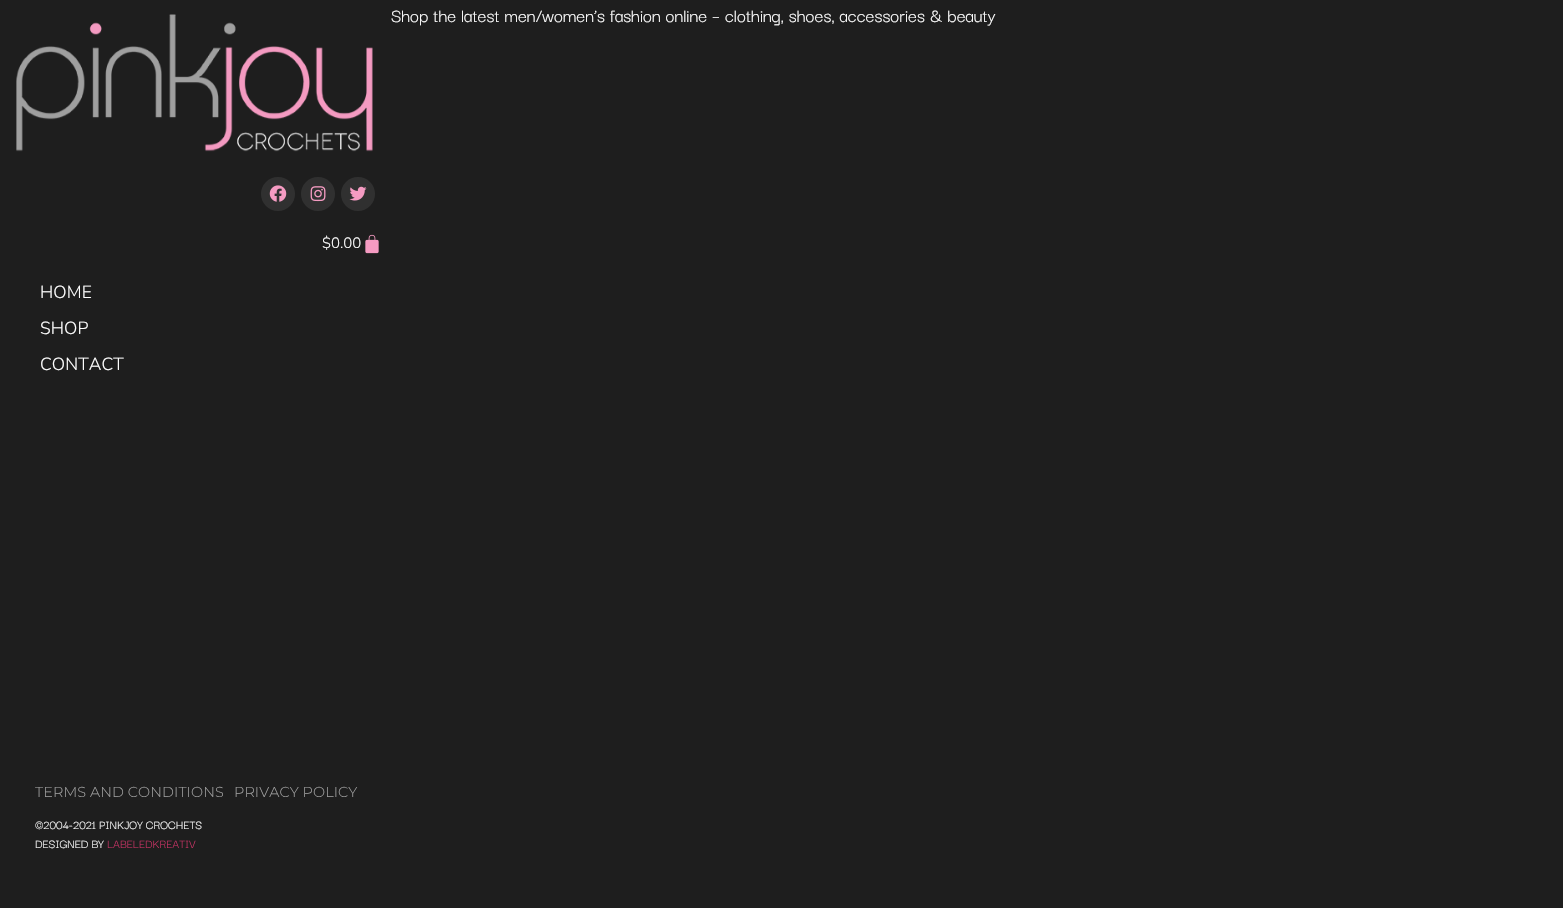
#include "include/core/SkBlurTypes.h"
#include "include/core/SkCanvas.h"
#include "include/core/SkData.h"
#include "include/core/SkFont.h"
#include "include/core/SkFontMgr.h"
#include "include/core/SkImage.h"
#include "include/core/SkMaskFilter.h"
#include "include/core/SkPaint.h"
#include "include/core/SkPathBuilder.h"
#include "include/core/SkTextBlob.h"
#include "include/effects/SkDashPathEffect.h"
#include "include/effects/SkGradientShader.h"
#include "include/utils/SkParsePath.h"

extern sk_sp<SkFontMgr> fontMgr;

void draw(SkCanvas* canvas) {
    SkPaint p;
    p.setAntiAlias(true);
    auto font = [&](const char* family, int weight, float size, bool italic = false) {
        SkFontStyle style(weight, SkFontStyle::kNormal_Width,
            italic ? SkFontStyle::kItalic_Slant : SkFontStyle::kUpright_Slant);
        SkFont result(fontMgr->matchFamilyStyle(family, style), size);
        result.setSubpixel(true);
        return result;
    };
    auto drawTracked = [&](const char* s, float x, float y, const SkFont& font, const SkPaint& ink, float letter, float word) {
        std::vector<SkGlyphID> glyphs(font.countText(s, strlen(s), SkTextEncoding::kUTF8));
        std::vector<float> xs(glyphs.size());
        font.textToGlyphs(s, strlen(s), SkTextEncoding::kUTF8, glyphs);
        font.getXPos(glyphs, xs, x);
        float extra = 0;
        for (size_t i = 0; i < glyphs.size(); i++) {
            xs[i] += extra;
            extra += letter + word * (glyphs[i] == font.unicharToGlyph(' '));
        }
        canvas->drawTextBlob(SkTextBlob::MakeFromPosHGlyphs(glyphs, xs, y, font), 0, 0, ink);
    };
    auto drawPhoto = [&](const char* path, float l, float t, float r, float b) {
        auto image = SkImages::DeferredFromEncodedData(SkData::MakeFromFileName(path));
        canvas->drawImageRect(image, SkRect::MakeLTRB(l, t, r, b), SkSamplingOptions());
    };
    canvas->clear(0xFF1E1E1E);
    auto font1 = font("Darker Grotesque", 400, 20);
    p.setColor(0xFFFFFFFF);
    canvas->drawString("Shop the latest men/women’s fashion online – clothing, shoes, accessories & beauty", 391, 22, font1, p);
    drawPhoto("media/1.png", 16, 14, 373, 152);
    p.setColor(0xFF303030);
    canvas->drawCircle(278, 194, 17, p);
    drawPhoto("media/2.png", 269, 185, 287, 202);
    canvas->drawCircle(318, 194, 17, p);
    drawPhoto("media/3.png", 310, 186, 326, 202);
    canvas->drawCircle(358, 194, 17, p);
    drawPhoto("media/4.png", 349, 186, 367, 201);
    auto font2 = font("Nunito", 300, 15);
    p.setColor(0xFFFFFFFF);
    canvas->drawString("$0.00", 322, 248, font2, p);
    drawPhoto("media/5.png", 365, 234, 379, 254);
    auto font3 = font("Nunito", 300, 17.5f);
    {
        const struct { const char* s; float x, y; } items[] = {
            {"HOME", 40, 298},
            {"SHOP", 40, 334},
            {"CONTACT", 40, 370},
        };
        for (auto [s, x, y] : items) {
            drawTracked(s, x, y, font3, p, 0.1f, 0);
        }
    }
    auto font4 = font("Montserrat", 300, 14.4f);
    p.setColor(0xFF9F9F9F);
    drawTracked("TERMS AND CONDITIONS", 35, 797, font4, p, 0.1f, 0);
    drawTracked("PRIVACY POLICY", 234, 797, font4, p, 0.1f, 0);
    auto font5 = font("Darker Grotesque", 400, 13);
    p.setColor(0xFFFFFFFF);
    canvas->drawString("©2004-2021 PINKJOY CROCHETS", 35, 829, font5, p);
    canvas->drawString("DESIGNED BY", 35, 848, font5, p);
    p.setColor(0xFFCC3366);
    canvas->drawString("LABELEDKREATIV", 107, 848, font5, p);
}
